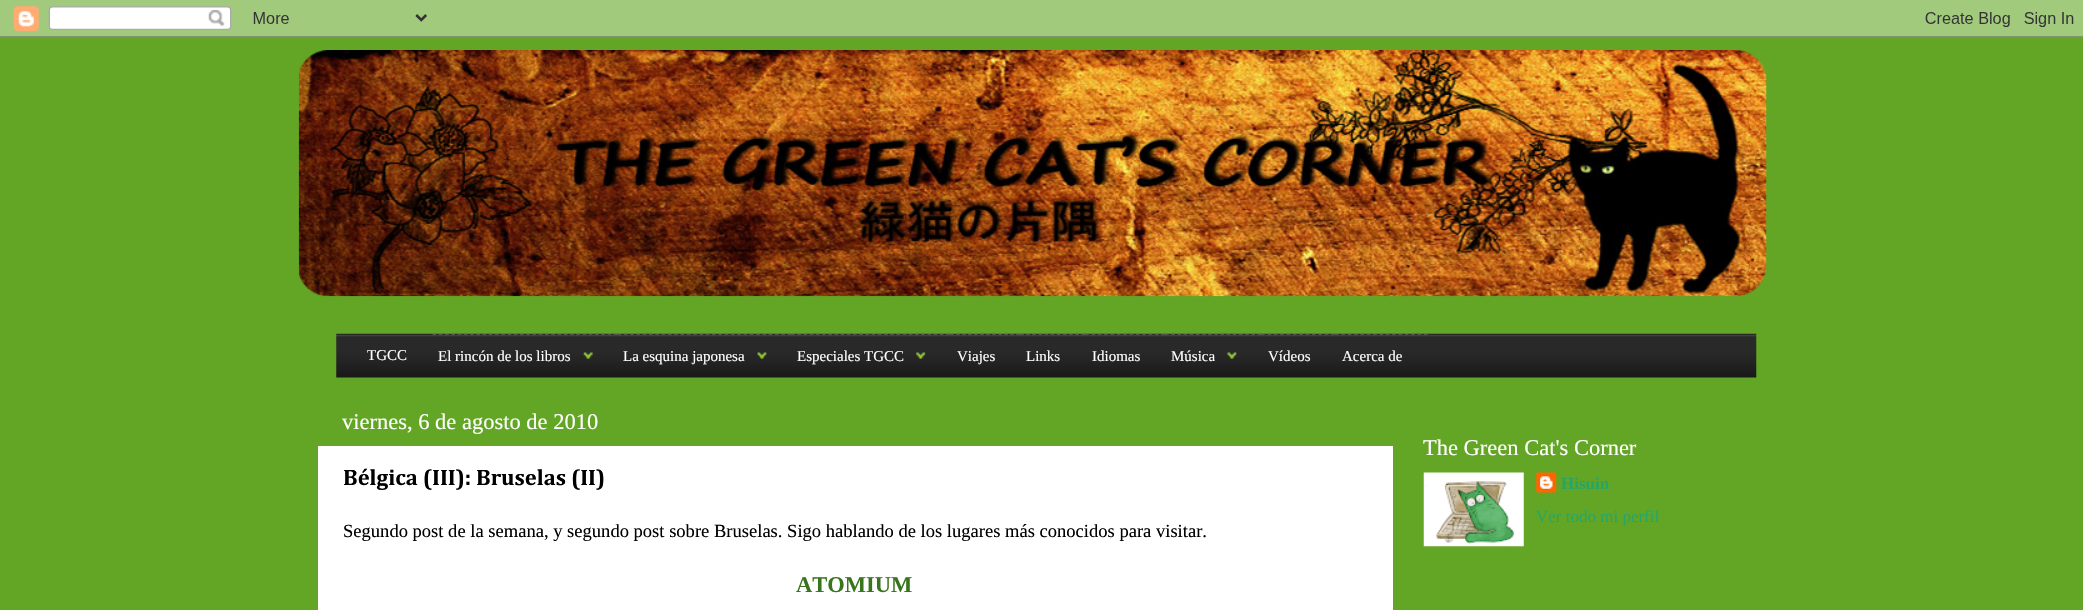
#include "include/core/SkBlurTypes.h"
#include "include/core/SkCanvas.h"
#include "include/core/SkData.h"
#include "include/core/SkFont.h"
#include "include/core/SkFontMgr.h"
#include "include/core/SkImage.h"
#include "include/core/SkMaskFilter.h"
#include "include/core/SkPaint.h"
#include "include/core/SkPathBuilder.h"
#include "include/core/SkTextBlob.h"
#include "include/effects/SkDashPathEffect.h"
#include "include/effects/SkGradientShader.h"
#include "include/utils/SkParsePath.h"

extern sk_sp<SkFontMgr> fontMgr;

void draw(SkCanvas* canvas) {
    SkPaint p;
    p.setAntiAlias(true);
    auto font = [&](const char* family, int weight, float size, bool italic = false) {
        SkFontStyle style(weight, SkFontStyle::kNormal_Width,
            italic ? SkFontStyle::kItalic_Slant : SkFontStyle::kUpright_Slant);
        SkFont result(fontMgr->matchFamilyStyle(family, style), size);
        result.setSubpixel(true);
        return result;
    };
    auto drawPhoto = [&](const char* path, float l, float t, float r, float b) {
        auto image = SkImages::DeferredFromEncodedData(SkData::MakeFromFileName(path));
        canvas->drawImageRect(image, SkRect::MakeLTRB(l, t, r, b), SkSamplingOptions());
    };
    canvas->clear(0xFF63A625);
    drawPhoto("media/1.png", 0, 0, 2083, 38);
    drawPhoto("media/2.png", 298, 50, 1767, 297);
    drawPhoto("media/3.png", 336, 333, 1757, 378);
    auto font1 = font("Liberation Serif", 400, 15);
    p.setColor(0xFFFFFFFF);
    canvas->drawString("TGCC", 367, 360, font1, p);
    p.setStyle(SkPaint::kStroke_Style);
    p.setStrokeWidth(1.2f);
    p.setColor(0xFF545454);
    p.setPathEffect(SkDashPathEffect::Make({{3.75f, 2.5f}}, 0));
    canvas->drawPath(SkPathBuilder().moveTo(432.5f, 334.5f).lineTo(617.5f, 334.5f).detach(), p);
    p.setPathEffect(nullptr);
    p.setStyle(SkPaint::kFill_Style);
    p.setColor(0xFFFFFFFF);
    canvas->drawString("El rincón de los libros", 438, 361, font1, p);
    drawPhoto("media/4.png", 583, 352, 593, 359);
    p.setStyle(SkPaint::kStroke_Style);
    p.setColor(0x80808080);
    p.setPathEffect(SkDashPathEffect::Make({{3.75f, 2.55f}}, 0));
    canvas->drawPath(SkPathBuilder().moveTo(617.5f, 334.5f).lineTo(791, 334.5f).detach(), p);
    p.setPathEffect(nullptr);
    p.setStyle(SkPaint::kFill_Style);
    p.setColor(0xFFFFFFFF);
    canvas->drawString("La esquina japonesa", 623, 361, font1, p);
    drawPhoto("media/5.png", 757, 352, 767, 359);
    p.setStyle(SkPaint::kStroke_Style);
    p.setColor(0xFF545454);
    p.setPathEffect(SkDashPathEffect::Make({{3.75f, 2.45f}}, 0));
    canvas->drawPath(SkPathBuilder().moveTo(791, 334.5f).lineTo(950, 334.5f).detach(), p);
    p.setPathEffect(nullptr);
    p.setStyle(SkPaint::kFill_Style);
    p.setColor(0xFFFFFFFF);
    canvas->drawString("Especiales TGCC", 797, 361, font1, p);
    drawPhoto("media/6.png", 916, 352, 926, 359);
    p.setStyle(SkPaint::kStroke_Style);
    p.setColor(0xFF545454);
    p.setPathEffect(SkDashPathEffect::Make({{3.75f, 2.27f}}, 0));
    canvas->drawPath(SkPathBuilder().moveTo(950, 334.5f).lineTo(1020, 334.5f).detach(), p);
    p.setPathEffect(nullptr);
    p.setStyle(SkPaint::kFill_Style);
    p.setColor(0xFFFFFFFF);
    canvas->drawString("Viajes", 957, 361, font1, p);
    p.setStyle(SkPaint::kStroke_Style);
    p.setColor(0xFF545454);
    p.setPathEffect(SkDashPathEffect::Make({{3.75f, 2.38f}}, 0));
    canvas->drawPath(SkPathBuilder().moveTo(1020, 334.5f).lineTo(1085, 334.5f).detach(), p);
    p.setPathEffect(nullptr);
    p.setStyle(SkPaint::kFill_Style);
    p.setColor(0xFFFFFFFF);
    canvas->drawString("Links", 1026, 361, font1, p);
    p.setStyle(SkPaint::kStroke_Style);
    p.setColor(0xFF545454);
    p.setPathEffect(SkDashPathEffect::Make({{3.75f, 2.6f}}, 0));
    canvas->drawPath(SkPathBuilder().moveTo(1085, 334.5f).lineTo(1165, 334.5f).detach(), p);
    p.setPathEffect(nullptr);
    p.setStyle(SkPaint::kFill_Style);
    p.setColor(0xFFFFFFFF);
    canvas->drawString("Idiomas", 1092, 361, font1, p);
    p.setStyle(SkPaint::kStroke_Style);
    p.setColor(0xFF545454);
    p.setPathEffect(SkDashPathEffect::Make({{3.75f, 2.41f}}, 0));
    canvas->drawPath(SkPathBuilder().moveTo(1165, 334.5f).lineTo(1261, 334.5f).detach(), p);
    p.setPathEffect(nullptr);
    p.setStyle(SkPaint::kFill_Style);
    p.setColor(0xFFFFFFFF);
    canvas->drawString("Música", 1171, 361, font1, p);
    drawPhoto("media/7.png", 1227, 352, 1237, 359);
    p.setStyle(SkPaint::kStroke_Style);
    p.setColor(0xFF545454);
    p.setPathEffect(SkDashPathEffect::Make({{3.75f, 2.61f}}, 0));
    canvas->drawPath(SkPathBuilder().moveTo(1261, 334.5f).lineTo(1335, 334.5f).detach(), p);
    p.setPathEffect(nullptr);
    p.setStyle(SkPaint::kFill_Style);
    p.setColor(0xFFFFFFFF);
    canvas->drawString("Vídeos", 1268, 361, font1, p);
    p.setStyle(SkPaint::kStroke_Style);
    p.setColor(0xFF545454);
    p.setPathEffect(SkDashPathEffect::Make({{3.75f, 2.59f}}, 0));
    canvas->drawPath(SkPathBuilder().moveTo(1335, 334.5f).lineTo(1427.5f, 334.5f).detach(), p);
    p.setPathEffect(nullptr);
    p.setStyle(SkPaint::kFill_Style);
    p.setColor(0xFFFFFFFF);
    canvas->drawString("Acerca de", 1342, 361, font1, p);
    auto font2 = font("Liberation Serif", 400, 22.5f);
    canvas->drawString("viernes, 6 de agosto de 2010", 342, 429, font2, p);
    canvas->drawRect(SkRect::MakeLTRB(318, 446, 1393, 610), p);
    auto font3 = font("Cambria", 700, 22.5f);
    p.setColor(0xFF000000);
    canvas->drawString("Bélgica (III): Bruselas (II)", 343, 485, font3, p);
    auto font4 = font("Liberation Serif", 400, 18.55f);
    canvas->drawString("Segundo post de la semana, y segundo post sobre Bruselas. Sigo hablando de los lugares más conocidos para visitar.", 343, 537, font4, p);
    auto font5 = font("Liberation Serif", 700, 22.5f);
    p.setColor(0xFF38761D);
    canvas->drawString("ATOMIUM", 796, 592, font5, p);
    p.setColor(0xFFFFFFFF);
    canvas->drawString("The Green Cat's Corner", 1423, 455, font2, p);
    drawPhoto("media/8.png", 1423, 472, 1524, 547);
    drawPhoto("media/9.png", 1536, 472, 1557, 493);
    auto font6 = font("Liberation Serif", 700, 17);
    p.setColor(0xFF25A668);
    canvas->drawString("Hisuin", 1561, 489, font6, p);
    auto font7 = font("Liberation Serif", 400, 17);
    canvas->drawString("Ver todo mi perfil", 1536, 522, font7, p);
}
